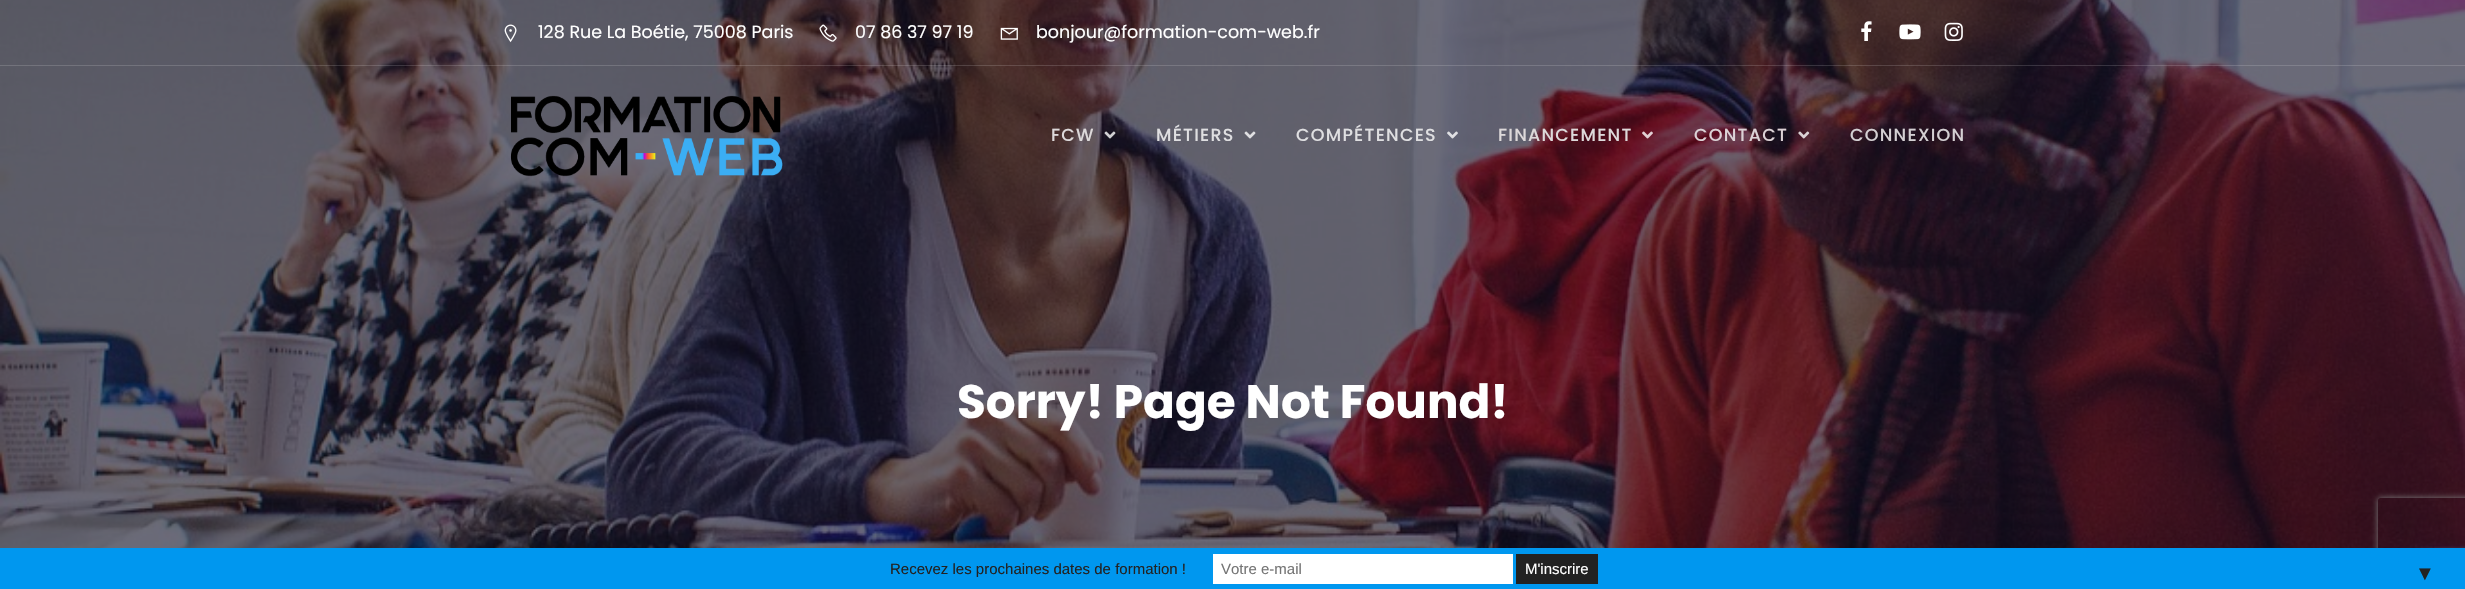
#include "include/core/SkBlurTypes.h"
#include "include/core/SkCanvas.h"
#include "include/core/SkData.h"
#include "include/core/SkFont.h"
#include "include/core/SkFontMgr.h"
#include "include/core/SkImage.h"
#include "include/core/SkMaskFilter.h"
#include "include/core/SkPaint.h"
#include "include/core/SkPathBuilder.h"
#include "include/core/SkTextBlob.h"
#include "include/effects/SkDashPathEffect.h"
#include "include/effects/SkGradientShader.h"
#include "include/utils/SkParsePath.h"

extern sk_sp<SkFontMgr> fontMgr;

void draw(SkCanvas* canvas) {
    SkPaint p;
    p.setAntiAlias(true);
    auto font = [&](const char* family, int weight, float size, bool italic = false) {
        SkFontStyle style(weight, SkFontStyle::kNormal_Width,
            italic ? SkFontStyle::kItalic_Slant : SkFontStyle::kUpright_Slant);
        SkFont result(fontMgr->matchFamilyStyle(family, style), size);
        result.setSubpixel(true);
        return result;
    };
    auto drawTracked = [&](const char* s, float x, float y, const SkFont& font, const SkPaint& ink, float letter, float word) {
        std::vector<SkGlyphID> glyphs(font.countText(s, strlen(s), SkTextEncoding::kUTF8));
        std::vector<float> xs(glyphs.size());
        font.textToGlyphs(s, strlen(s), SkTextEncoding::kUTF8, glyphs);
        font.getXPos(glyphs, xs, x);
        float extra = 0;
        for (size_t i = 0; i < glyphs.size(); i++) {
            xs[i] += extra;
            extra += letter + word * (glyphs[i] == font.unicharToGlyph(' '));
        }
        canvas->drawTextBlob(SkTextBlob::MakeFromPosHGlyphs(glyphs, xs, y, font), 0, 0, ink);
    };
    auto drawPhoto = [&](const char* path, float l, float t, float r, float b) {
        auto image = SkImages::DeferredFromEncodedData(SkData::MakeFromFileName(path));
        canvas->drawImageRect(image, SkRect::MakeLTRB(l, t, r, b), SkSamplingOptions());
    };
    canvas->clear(0xFFFFFFFF);
    drawPhoto("media/13.png", 0, 0, 2465, 548);
    p.setColor(0x26FFFFFF);
    canvas->drawRect(SkRect::MakeLTRB(0, 65, 2465, 66), p);
    drawPhoto("media/1.png", 504, 24, 517, 43);
    auto font1 = font("Poppins", 400, 17.5f);
    p.setColor(0xFFFFFFFF);
    canvas->drawString("128 Rue La Boétie, 75008 Paris", 538, 38, font1, p);
    drawPhoto("media/2.png", 819, 24, 837, 42);
    canvas->drawString("07 86 37 97 19", 855, 38, font1, p);
    drawPhoto("media/3.png", 1000, 27, 1018, 40);
    canvas->drawString("bonjour@formation-com-web.fr", 1036, 38, font1, p);
    drawPhoto("media/4.png", 1861, 21, 1872, 41);
    drawPhoto("media/5.png", 1899, 24, 1921, 40);
    drawPhoto("media/6.png", 1944, 22, 1963, 41);
    drawPhoto("media/7.png", 510, 95, 783, 177);
    auto font2 = font("Poppins", 500, 17.5f);
    p.setColor(0xFFDDD9DA);
    drawTracked("FCW", 1051, 141, font2, p, 1.25f, 0);
    drawPhoto("media/8.png", 1104, 131, 1116, 139);
    p.setColor(0xFFDFDFE1);
    drawTracked("MÉTIERS", 1156, 141, font2, p, 1.25f, 0);
    drawPhoto("media/9.png", 1244, 131, 1256, 139);
    drawTracked("COMPÉTENCES", 1296, 141, font2, p, 1.25f, 0);
    drawPhoto("media/10.png", 1447, 131, 1458, 139);
    p.setColor(0xFFDDD9DA);
    drawTracked("FINANCEMENT", 1498, 141, font2, p, 1.25f, 0);
    drawPhoto("media/11.png", 1642, 131, 1653, 139);
    p.setColor(0xFFDCD2D6);
    drawTracked("CONTACT", 1694, 141, font2, p, 1.25f, 0);
    drawPhoto("media/12.png", 1798, 131, 1810, 139);
    p.setColor(0xFFD4D0D3);
    drawTracked("CONNEXION", 1850, 141, font2, p, 1.25f, 0);
    auto font3 = font("Poppins", 700, 46.9f);
    p.setColor(0xFFFFFFFF);
    canvas->drawString("Sorry! Page Not Found!", 957, 418, font3, p);
    canvas->save();
    canvas->clipPath(SkPathBuilder(SkPathFillType::kEvenOdd).moveTo(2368, 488).lineTo(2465, 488).lineTo(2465, 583).lineTo(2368, 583).close().moveTo(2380.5f, 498).lineTo(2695.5f, 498).cubicTo(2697, 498, 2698, 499, 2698, 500.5f).lineTo(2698, 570.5f).cubicTo(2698, 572, 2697, 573, 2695.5f, 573).lineTo(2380.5f, 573).cubicTo(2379, 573, 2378, 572, 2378, 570.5f).lineTo(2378, 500.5f).cubicTo(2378, 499, 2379, 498, 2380.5f, 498).close().detach(), true);
    p.setColor(0xFF808080);
    p.setMaskFilter(SkMaskFilter::MakeBlur(kNormal_SkBlurStyle, 3));
    canvas->drawRoundRect(SkRect::MakeLTRB(2378, 498, 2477, 573), 2.5f, 2.5f, p);
    p.setMaskFilter(nullptr);
    canvas->restore();
    p.setColor(0xFF0097EF);
    canvas->drawRect(SkRect::MakeLTRB(0, 548, 2465, 589), p);
    auto font4 = font("Liberation Sans", 400, 15);
    p.setColor(0xFF222222);
    canvas->drawString("Recevez les prochaines dates de formation !", 890, 574, font4, p);
    p.setColor(0xFFFFFFFF);
    canvas->drawRect(SkRect::MakeLTRB(1213, 554, 1513, 584), p);
    p.setColor(0xFF757575);
    canvas->drawString("Votre e-mail", 1221, 574, font4, p);
    p.setColor(0xFF222222);
    canvas->drawRect(SkRect::MakeLTRB(1516, 554, 1598, 584), p);
    p.setColor(0xFFFFFFFF);
    canvas->drawString("M'inscrire", 1525, 574, font4, p);
    auto font5 = font("Liberation Sans", 400, 20);
    p.setColor(0xFF222222);
    canvas->drawString("▼", 2415, 580, font5, p);
}
